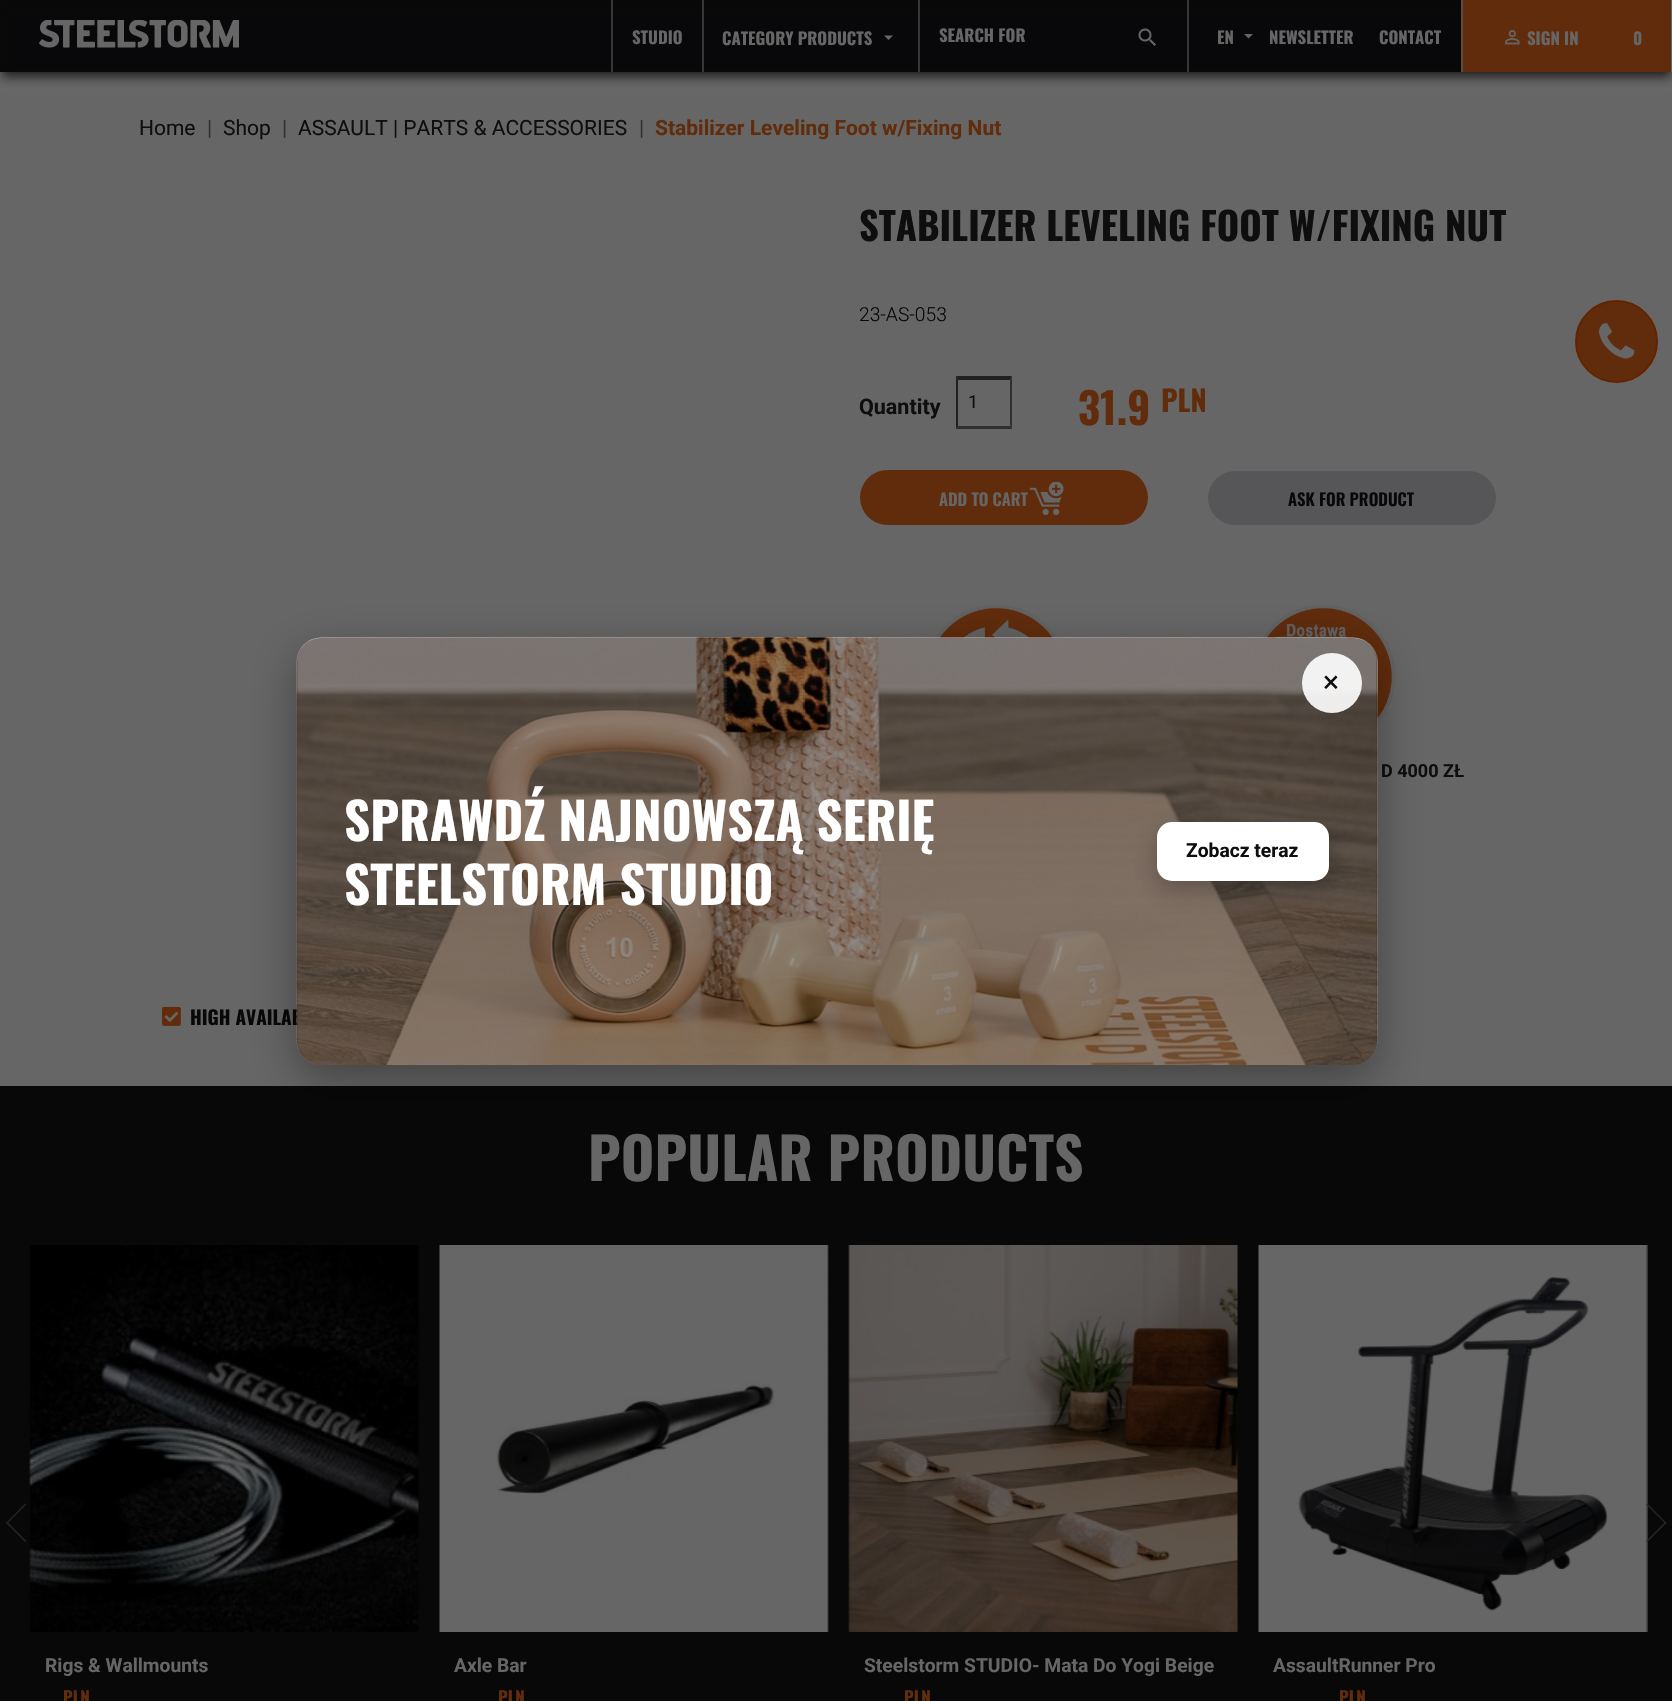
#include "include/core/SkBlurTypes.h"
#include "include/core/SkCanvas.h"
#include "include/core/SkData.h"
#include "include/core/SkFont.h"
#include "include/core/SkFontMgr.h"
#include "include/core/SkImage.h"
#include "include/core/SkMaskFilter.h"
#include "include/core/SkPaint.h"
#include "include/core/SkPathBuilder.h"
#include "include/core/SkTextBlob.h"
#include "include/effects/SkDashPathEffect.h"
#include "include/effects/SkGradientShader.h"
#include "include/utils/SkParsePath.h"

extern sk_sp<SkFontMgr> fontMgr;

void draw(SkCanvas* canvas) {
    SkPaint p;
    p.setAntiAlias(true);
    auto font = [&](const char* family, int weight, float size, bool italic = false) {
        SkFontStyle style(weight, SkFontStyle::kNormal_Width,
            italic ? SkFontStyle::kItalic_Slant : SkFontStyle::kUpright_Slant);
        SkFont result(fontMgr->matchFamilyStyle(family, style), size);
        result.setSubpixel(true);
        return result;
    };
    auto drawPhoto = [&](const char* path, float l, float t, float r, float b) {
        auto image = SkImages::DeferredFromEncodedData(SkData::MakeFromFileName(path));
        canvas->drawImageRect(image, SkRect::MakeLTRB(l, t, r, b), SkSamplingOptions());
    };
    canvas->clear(0xFF080809);
    p.setColor(0xFF666666);
    canvas->drawRect(SkRect::MakeLTRB(0, 72, 1672, 1086), p);
    p.setColor(0xBF080809);
    p.setMaskFilter(SkMaskFilter::MakeBlur(kNormal_SkBlurStyle, 5));
    canvas->drawRect(SkRect::MakeLTRB(2, 8, 1671, 77), p);
    p.setMaskFilter(nullptr);
    drawPhoto("media/1.png", 39, 20, 239, 48);
    p.setColor(0xFF373738);
    canvas->drawRect(SkRect::MakeLTRB(611, 0, 613, 72), p);
    auto font1 = font("Oswald", 700, 16.75f);
    p.setColor(0xFF666666);
    canvas->drawString("STUDIO", 632, 44, font1, p);
    p.setColor(0xFF373738);
    canvas->drawRect(SkRect::MakeLTRB(702, 0, 704, 72), p);
    p.setColor(0xFF666666);
    canvas->drawString("CATEGORY PRODUCTS", 722, 45, font1, p);
    canvas->drawPath(SkPathBuilder().moveTo(884, 35.5f).lineTo(893, 35.5f).lineTo(888.5f, 40).close().detach(), p);
    p.setColor(0xFF373738);
    canvas->drawRect(SkRect::MakeLTRB(918, 0, 920, 72), p);
    p.setColor(0xFF666666);
    canvas->drawString("SEARCH FOR", 939, 42, font1, p);
    drawPhoto("media/2.png", 1138, 28, 1156, 46);
    p.setColor(0xFF373738);
    canvas->drawRect(SkRect::MakeLTRB(1187, 0, 1189, 72), p);
    p.setColor(0xFF666666);
    canvas->drawString("EN", 1217, 44, font1, p);
    canvas->drawPath(SkPathBuilder().moveTo(1244, 34).lineTo(1253, 34).lineTo(1248.5f, 38.5f).close().detach(), p);
    canvas->drawString("NEWSLETTER", 1269, 44, font1, p);
    canvas->drawString("CONTACT", 1379, 44, font1, p);
    {
        const struct { float l, t, r, b; SkColor color; } items[] = {
            {1463, 0, 1671, 72, 0xFF602C0C},
            {1671, 0, 1672, 72, 0xFF666666},
            {1461, 0, 1463, 72, 0xFF634939},
        };
        for (auto [l, t, r, b, color] : items) {
            p.setColor(color);
            canvas->drawRect(SkRect::MakeLTRB(l, t, r, b), p);
        }
    }
    drawPhoto("media/3.png", 1505, 30, 1520, 45);
    p.setColor(0xFF666666);
    canvas->drawString("SIGN IN", 1527, 45, font1, p);
    canvas->drawString("0", 1633, 45, font1, p);
    auto font2 = font("Roboto", 400, 21);
    p.setColor(0xFF0E0E0E);
    canvas->drawString("Home", 139, 135, font2, p);
    p.setColor(0xFF313131);
    canvas->drawString("|", 207, 135, font2, p);
    p.setColor(0xFF0E0E0E);
    canvas->drawString("Shop", 223, 135, font2, p);
    p.setColor(0xFF313131);
    canvas->drawString("|", 282, 135, font2, p);
    p.setColor(0xFF0E0E0E);
    canvas->drawString("ASSAULT | PARTS & ACCESSORIES", 298, 135, font2, p);
    p.setColor(0xFF313131);
    canvas->drawString("|", 639, 135, font2, p);
    auto font3 = font("Roboto", 700, 21);
    p.setColor(0xFF602C0C);
    canvas->drawString("Stabilizer Leveling Foot w/Fixing Nut", 655, 135, font3, p);
    auto font4 = font("Oswald", 700, 38.4f);
    p.setColor(0xFF0E0E0E);
    canvas->drawString("STABILIZER LEVELING FOOT W/FIXING NUT", 859, 241, font4, p);
    auto font5 = font("Roboto", 300, 19.25f);
    p.setColor(0xFF080809);
    canvas->drawString("23-AS-053", 859, 321, font5, p);
    auto font6 = font("Roboto", 700, 21.5f);
    p.setColor(0xFF0E0E0E);
    canvas->drawString("Quantity", 859, 414, font6, p);
    p.setColor(0xFF202020);
    canvas->drawPath(SkPathBuilder().moveTo(956, 376).lineTo(1012, 376).lineTo(1010, 380).lineTo(958, 380).close().detach(), p);
    p.setColor(0xFF2F2F2F);
    canvas->drawPath(SkPathBuilder().moveTo(1012, 376).lineTo(1012, 429).lineTo(1010, 426).lineTo(1010, 380).close().detach(), p);
    canvas->drawPath(SkPathBuilder().moveTo(1012, 429).lineTo(956, 429).lineTo(958, 426).lineTo(1010, 426).close().detach(), p);
    p.setColor(0xFF202020);
    canvas->drawPath(SkPathBuilder().moveTo(956, 429).lineTo(956, 376).lineTo(958, 380).lineTo(958, 426).close().detach(), p);
    auto font7 = font("Roboto", 400, 18);
    p.setColor(0xFF0E0E0E);
    canvas->drawString("1", 968, 408, font7, p);
    auto font8 = font("Oswald", 700, 43);
    p.setColor(0xFF602C0C);
    canvas->drawString("31.9", 1078, 425, font8, p);
    auto font9 = font("Oswald", 700, 29);
    canvas->drawString("PLN", 1161, 412, font9, p);
    canvas->drawRoundRect(SkRect::MakeLTRB(860, 470, 1148, 525), 27.5f, 27.5f, p);
    auto font10 = font("Oswald", 600, 16.75f);
    p.setColor(0xFF666666);
    canvas->drawString("ADD TO CART", 939, 506, font10, p);
    drawPhoto("media/4.png", 1029, 482, 1064, 515);
    p.setColor(0xFF565658);
    canvas->drawRoundRect(SkRect::MakeLTRB(1208, 471, 1496, 525), 27, 27, p);
    p.setColor(0xFF080809);
    canvas->drawString("ASK FOR PRODUCT", 1288, 506, font10, p);
    drawPhoto("media/5.png", 935, 604, 1057, 638);
    drawPhoto("media/6.png", 1262, 604, 1395, 726);
    auto font11 = font("Roboto", 700, 18);
    p.setColor(0xFF0E0E0E);
    canvas->drawString("D 4000 ZŁ", 1381, 777, font11, p);
    drawPhoto("media/7.png", 162, 1006, 181, 1026);
    auto font12 = font("Oswald", 700, 19.25f);
    p.setColor(0xFF080809);
    canvas->drawString("HIGH AVAILAB", 190, 1025, font12, p);
    p.setColor(0xFF602C0C);
    canvas->drawCircle(1616.5f, 341.5f, 40.5f, p);
    p.setStyle(SkPaint::kStroke_Style);
    p.setStrokeWidth(2);
    p.setColor(0xFF642200);
    canvas->drawCircle(1616.5f, 341.5f, 40.5f, p);
    drawPhoto("media/8.png", 1599, 323, 1635, 359);
    auto font13 = font("Oswald", 700, 57.5f);
    p.setStyle(SkPaint::kFill_Style);
    p.setColor(0xFF666666);
    canvas->drawString("POPULAR PRODUCTS", 588, 1181, font13, p);
    p.setColor(0xFF212121);
    canvas->drawPath(SkPathBuilder().moveTo(7, 1521.5f).lineTo(26.5f, 1541).lineTo(25, 1542).lineTo(6, 1523).close().detach(), p);
    canvas->drawPath(SkPathBuilder().moveTo(25, 1503.5f).lineTo(26.5f, 1504.5f).lineTo(7, 1524).lineTo(6, 1523).close().detach(), p);
    drawPhoto("media/12.png", 1258, 1245, 1648, 1632);
    p.setColor(0xBF292929);
    canvas->drawPath(SkPathBuilder().moveTo(1647.5f, 1503.5f).lineTo(1666.5f, 1523).lineTo(1665.5f, 1524).lineTo(1646, 1504.5f).close().detach(), p);
    canvas->drawPath(SkPathBuilder().moveTo(1665.5f, 1521.5f).lineTo(1666.5f, 1523).lineTo(1647.5f, 1542).lineTo(1646, 1541).close().detach(), p);
    drawPhoto("media/9.png", 29, 1245, 419, 1632);
    auto font14 = font("Roboto", 700, 19.25f);
    p.setColor(0xFF666666);
    canvas->drawString("Rigs & Wallmounts", 45, 1672, font14, p);
    auto font15 = font("Oswald", 700, 17);
    p.setColor(0xFF602C0C);
    canvas->drawString("PLN", 63, 1704, font15, p);
    drawPhoto("media/10.png", 439, 1245, 829, 1632);
    p.setColor(0xFF666666);
    canvas->drawString("Axle Bar", 454, 1672, font14, p);
    p.setColor(0xFF602C0C);
    canvas->drawString("PLN", 498, 1704, font15, p);
    drawPhoto("media/11.png", 848, 1245, 1238, 1632);
    p.setColor(0xFF666666);
    canvas->drawString("Steelstorm STUDIO- Mata Do Yogi Beige", 864, 1672, font14, p);
    p.setColor(0xFF602C0C);
    canvas->drawString("PLN", 904, 1704, font15, p);
    p.setColor(0xFF666666);
    canvas->drawString("AssaultRunner Pro", 1273, 1672, font14, p);
    p.setColor(0xFF602C0C);
    canvas->drawString("PLN", 1339, 1704, font15, p);
    p.setColor(0x59000000);
    p.setMaskFilter(SkMaskFilter::MakeBlur(kNormal_SkBlurStyle, 22.5f));
    canvas->drawRoundRect(SkRect::MakeLTRB(297, 653, 1377, 1080), 24, 24, p);
    p.setMaskFilter(nullptr);
    drawPhoto("media/13.png", 296, 637, 1378, 1065);
    p.setColor(0x66000000);
    canvas->drawRoundRect(SkRect::MakeLTRB(297, 638, 1377, 1065), 24, 24, p);
    p.setColor(0xE6FFFFFF);
    canvas->drawCircle(1332, 683, 30, p);
    auto font16 = font("Roboto", 400, 30);
    p.setColor(0xFF0E0E0E);
    canvas->drawString("×", 1323, 692, font16, p);
    auto font17 = font("Oswald", 700, 51);
    p.setColor(0xFFFFFFFF);
    canvas->drawString("SPRAWDŹ NAJNOWSZĄ SERIĘ", 344, 841, font17, p);
    canvas->drawString("STEELSTORM STUDIO", 344, 905, font17, p);
    p.setColor(0x40000000);
    p.setMaskFilter(SkMaskFilter::MakeBlur(kNormal_SkBlurStyle, 12));
    canvas->drawRoundRect(SkRect::MakeLTRB(1157, 831, 1329, 890), 15, 15, p);
    p.setMaskFilter(nullptr);
    p.setColor(0xFFFFFFFF);
    canvas->drawRoundRect(SkRect::MakeLTRB(1157, 822, 1329, 881), 15, 15, p);
    p.setColor(0xFF0E0E0E);
    canvas->drawString("Zobacz teraz", 1186, 857, font14, p);
}
